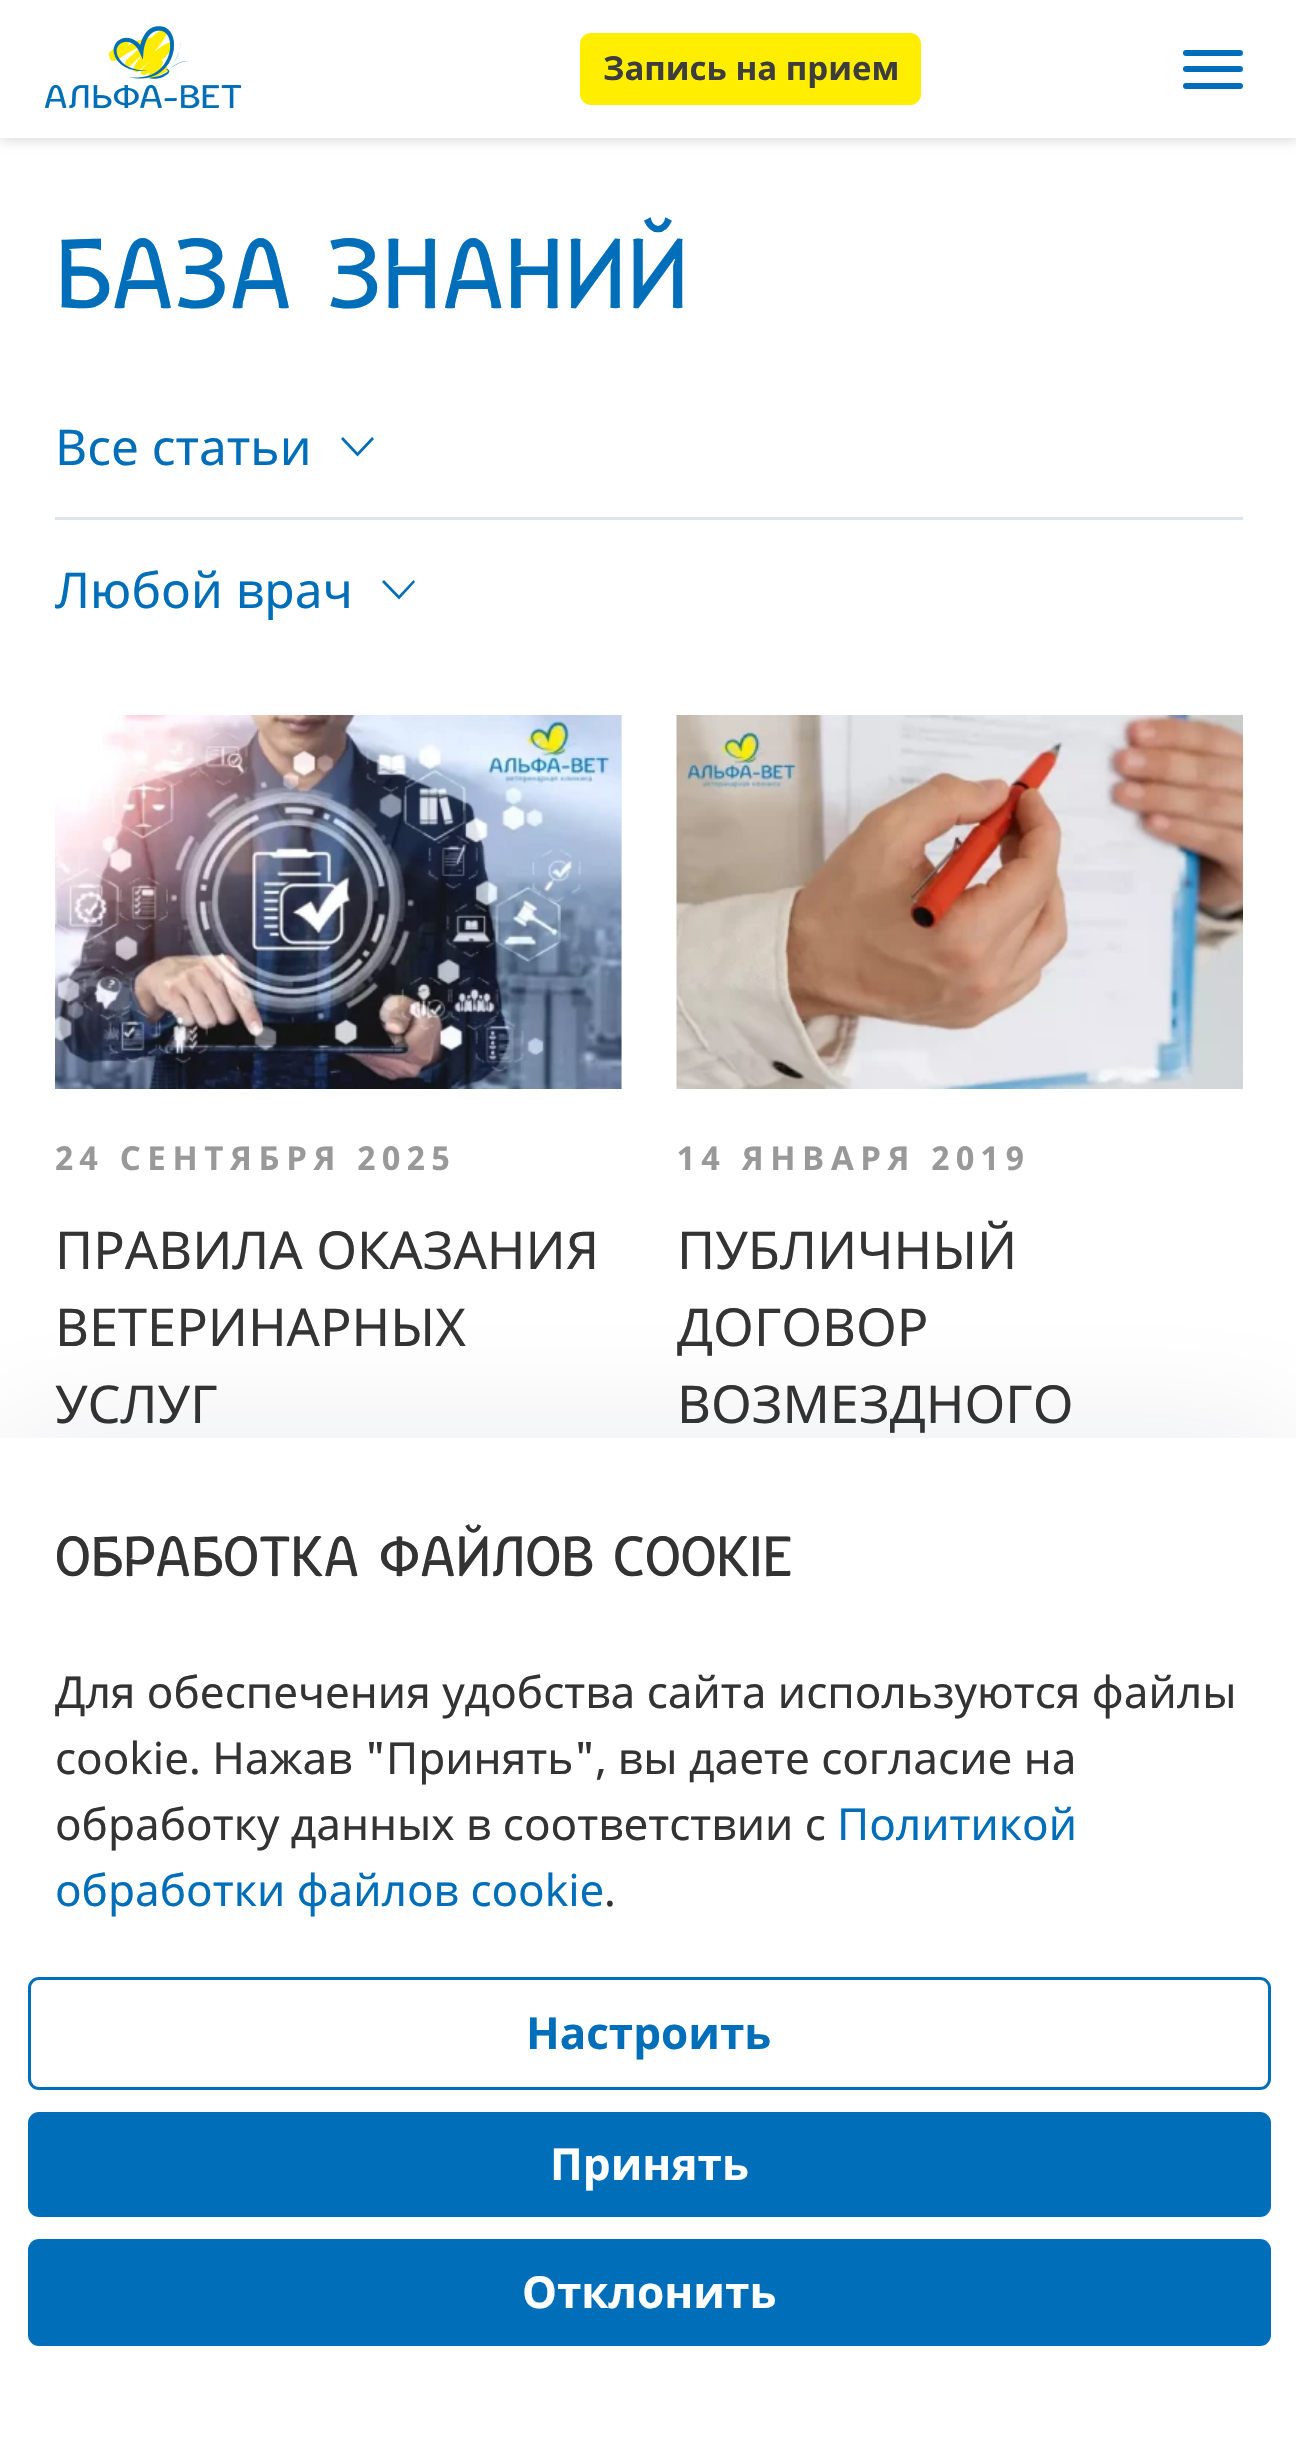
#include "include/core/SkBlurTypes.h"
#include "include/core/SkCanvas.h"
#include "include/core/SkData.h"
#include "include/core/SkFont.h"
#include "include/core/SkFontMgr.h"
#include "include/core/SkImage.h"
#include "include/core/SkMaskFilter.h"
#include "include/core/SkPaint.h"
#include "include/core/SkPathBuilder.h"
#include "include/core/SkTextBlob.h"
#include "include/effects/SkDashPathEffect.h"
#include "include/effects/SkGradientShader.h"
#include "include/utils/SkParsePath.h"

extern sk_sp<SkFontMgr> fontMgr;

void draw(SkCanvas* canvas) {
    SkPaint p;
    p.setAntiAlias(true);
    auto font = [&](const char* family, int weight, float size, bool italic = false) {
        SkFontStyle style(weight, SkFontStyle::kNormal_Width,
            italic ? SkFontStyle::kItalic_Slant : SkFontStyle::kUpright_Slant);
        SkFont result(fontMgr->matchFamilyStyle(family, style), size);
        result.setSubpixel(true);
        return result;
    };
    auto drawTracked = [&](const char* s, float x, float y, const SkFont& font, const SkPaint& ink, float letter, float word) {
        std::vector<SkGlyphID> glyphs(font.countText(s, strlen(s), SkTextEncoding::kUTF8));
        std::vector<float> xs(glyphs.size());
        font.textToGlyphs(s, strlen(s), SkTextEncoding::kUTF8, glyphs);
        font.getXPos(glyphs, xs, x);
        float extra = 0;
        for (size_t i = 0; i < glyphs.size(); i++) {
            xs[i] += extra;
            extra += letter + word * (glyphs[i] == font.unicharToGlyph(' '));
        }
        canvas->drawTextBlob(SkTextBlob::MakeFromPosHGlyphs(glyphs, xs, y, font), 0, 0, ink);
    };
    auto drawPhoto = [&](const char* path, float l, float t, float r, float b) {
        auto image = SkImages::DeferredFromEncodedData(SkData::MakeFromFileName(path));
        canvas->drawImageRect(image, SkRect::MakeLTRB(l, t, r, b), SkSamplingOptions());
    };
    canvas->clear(0xFFFFFFFF);
    p.setColor(0x26000000);
    p.setMaskFilter(SkMaskFilter::MakeBlur(kNormal_SkBlurStyle, 5.5f));
    canvas->drawRect(SkRect::MakeLTRB(0, 3, 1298, 140), p);
    p.setMaskFilter(nullptr);
    p.setColor(0xFFFFFFFF);
    canvas->drawRect(SkRect::MakeLTRB(0, 0, 1296, 138), p);
    drawPhoto("media/1.png", 44, 26, 242, 109);
    p.setColor(0xFFFFEE00);
    canvas->drawRoundRect(SkRect::MakeLTRB(580, 33, 921, 105), 11, 11, p);
    auto font1 = font("Noto Sans", 700, 33);
    p.setColor(0xFF3D3D3D);
    canvas->drawString("Запись на прием", 603, 80, font1, p);
    p.setColor(0xFF006EB8);
    canvas->drawRoundRect(SkRect::MakeLTRB(1183, 66, 1243, 72), 3, 3, p);
    canvas->drawRoundRect(SkRect::MakeLTRB(1183, 50, 1243, 56), 3, 3, p);
    canvas->drawRoundRect(SkRect::MakeLTRB(1183, 83, 1243, 89), 3, 3, p);
    auto font2 = font("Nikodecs", 500, 115.5f);
    canvas->drawString("БАЗА ЗНАНИЙ", 55, 308, font2, p);
    auto font3 = font("Noto Sans", 400, 49.5f);
    canvas->drawString("Все статьи", 55, 465, font3, p);
    p.setColor(0xFF006EB7);
    canvas->drawPath(SkPathBuilder().moveTo(374, 439).lineTo(372, 437).lineTo(357.5f, 452.5f).lineTo(343, 437).lineTo(341, 439).lineTo(357.5f, 456.5f).close().detach(), p);
    p.setColor(0xFFDCE3EA);
    canvas->drawRect(SkRect::MakeLTRB(55, 517, 1243, 520), p);
    p.setColor(0xFF006EB8);
    canvas->drawString("Любой врач", 55, 608, font3, p);
    p.setColor(0xFF006EB7);
    canvas->drawPath(SkPathBuilder().moveTo(415, 582).lineTo(413.5f, 580).lineTo(399, 595.5f).lineTo(384, 580).lineTo(382, 582).lineTo(399, 599.5f).close().detach(), p);
    p.setColor(0xFFEEF5FB);
    canvas->drawRect(SkRect::MakeLTRB(621, 715, 622, 1089), p);
    drawPhoto("media/2.png", 55, 715, 622, 1089);
    p.setColor(0xFF999999);
    drawTracked("24 СЕНТЯБРЯ 2025", 55, 1170, font1, p, 6.6f, 0);
    auto font4 = font("Noto Sans", 400, 52.25f);
    p.setColor(0xFF333333);
    {
        const struct { const char* s; float x, y; } items[] = {
            {"ПРАВИЛА ОКАЗАНИЯ", 55, 1269},
            {"ВЕТЕРИНАРНЫХ", 55, 1346},
            {"УСЛУГ", 55, 1423},
        };
        for (auto [s, x, y] : items) {
            canvas->drawString(s, x, y, font4, p);
        }
    }
    drawPhoto("media/3.png", 676, 715, 1243, 1089);
    p.setColor(0xFF999999);
    drawTracked("14 ЯНВАРЯ 2019", 677, 1170, font1, p, 6.6f, 0);
    p.setColor(0xFF333333);
    {
        const struct { const char* s; float x, y; } items[] = {
            {"ПУБЛИЧНЫЙ", 677, 1269},
            {"ДОГОВОР", 677, 1346},
            {"ВОЗМЕЗДНОГО", 677, 1423},
        };
        for (auto [s, x, y] : items) {
            canvas->drawString(s, x, y, font4, p);
        }
    }
    p.setColor(0x1A0F1C46);
    p.setMaskFilter(SkMaskFilter::MakeBlur(kNormal_SkBlurStyle, 69));
    canvas->drawRect(SkRect::MakeLTRB(0, 1449, 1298, 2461), p);
    p.setMaskFilter(nullptr);
    p.setColor(0xFFFFFFFF);
    canvas->drawRect(SkRect::MakeLTRB(0, 1438, 1296, 2450), p);
    auto font5 = font("Nikodecs", 500, 66);
    p.setColor(0xFF333333);
    canvas->drawString("ОБРАБОТКА ФАЙЛОВ COOKIE", 55, 1576, font5, p);
    auto font6 = font("Noto Sans", 400, 44);
    {
        const struct { const char* s; float x, y; } items[] = {
            {"Для обеспечения удобства сайта используются файлы", 55, 1708},
            {"cookie. Нажав \"Принять\", вы даете согласие на", 55, 1774},
            {"обработку данных в соответствии с", 55, 1840},
        };
        for (auto [s, x, y] : items) {
            canvas->drawString(s, x, y, font6, p);
        }
    }
    p.setColor(0xFF006EB8);
    canvas->drawString("Политикой", 837, 1840, font6, p);
    canvas->drawString("обработки файлов cookie", 55, 1906, font6, p);
    p.setColor(0xFF333333);
    canvas->drawString(".", 604, 1906, font6, p);
    p.setStyle(SkPaint::kStroke_Style);
    p.setStrokeWidth(3);
    p.setColor(0xFF006EB8);
    canvas->drawRoundRect(SkRect::MakeLTRB(29.5f, 1978.5f, 1269.5f, 2088.5f), 9.5f, 9.5f, p);
    auto font7 = font("Noto Sans", 700, 44);
    p.setStyle(SkPaint::kFill_Style);
    canvas->drawString("Настроить", 526, 2049, font7, p);
    canvas->drawRoundRect(SkRect::MakeLTRB(28, 2112, 1271, 2217), 11, 11, p);
    p.setColor(0xFFFFFFFF);
    canvas->drawString("Принять", 550, 2180, font7, p);
    p.setColor(0xFF006EB8);
    canvas->drawRoundRect(SkRect::MakeLTRB(28, 2239, 1271, 2346), 11, 11, p);
    p.setColor(0xFFFFFFFF);
    canvas->drawString("Отклонить", 522, 2308, font7, p);
}
